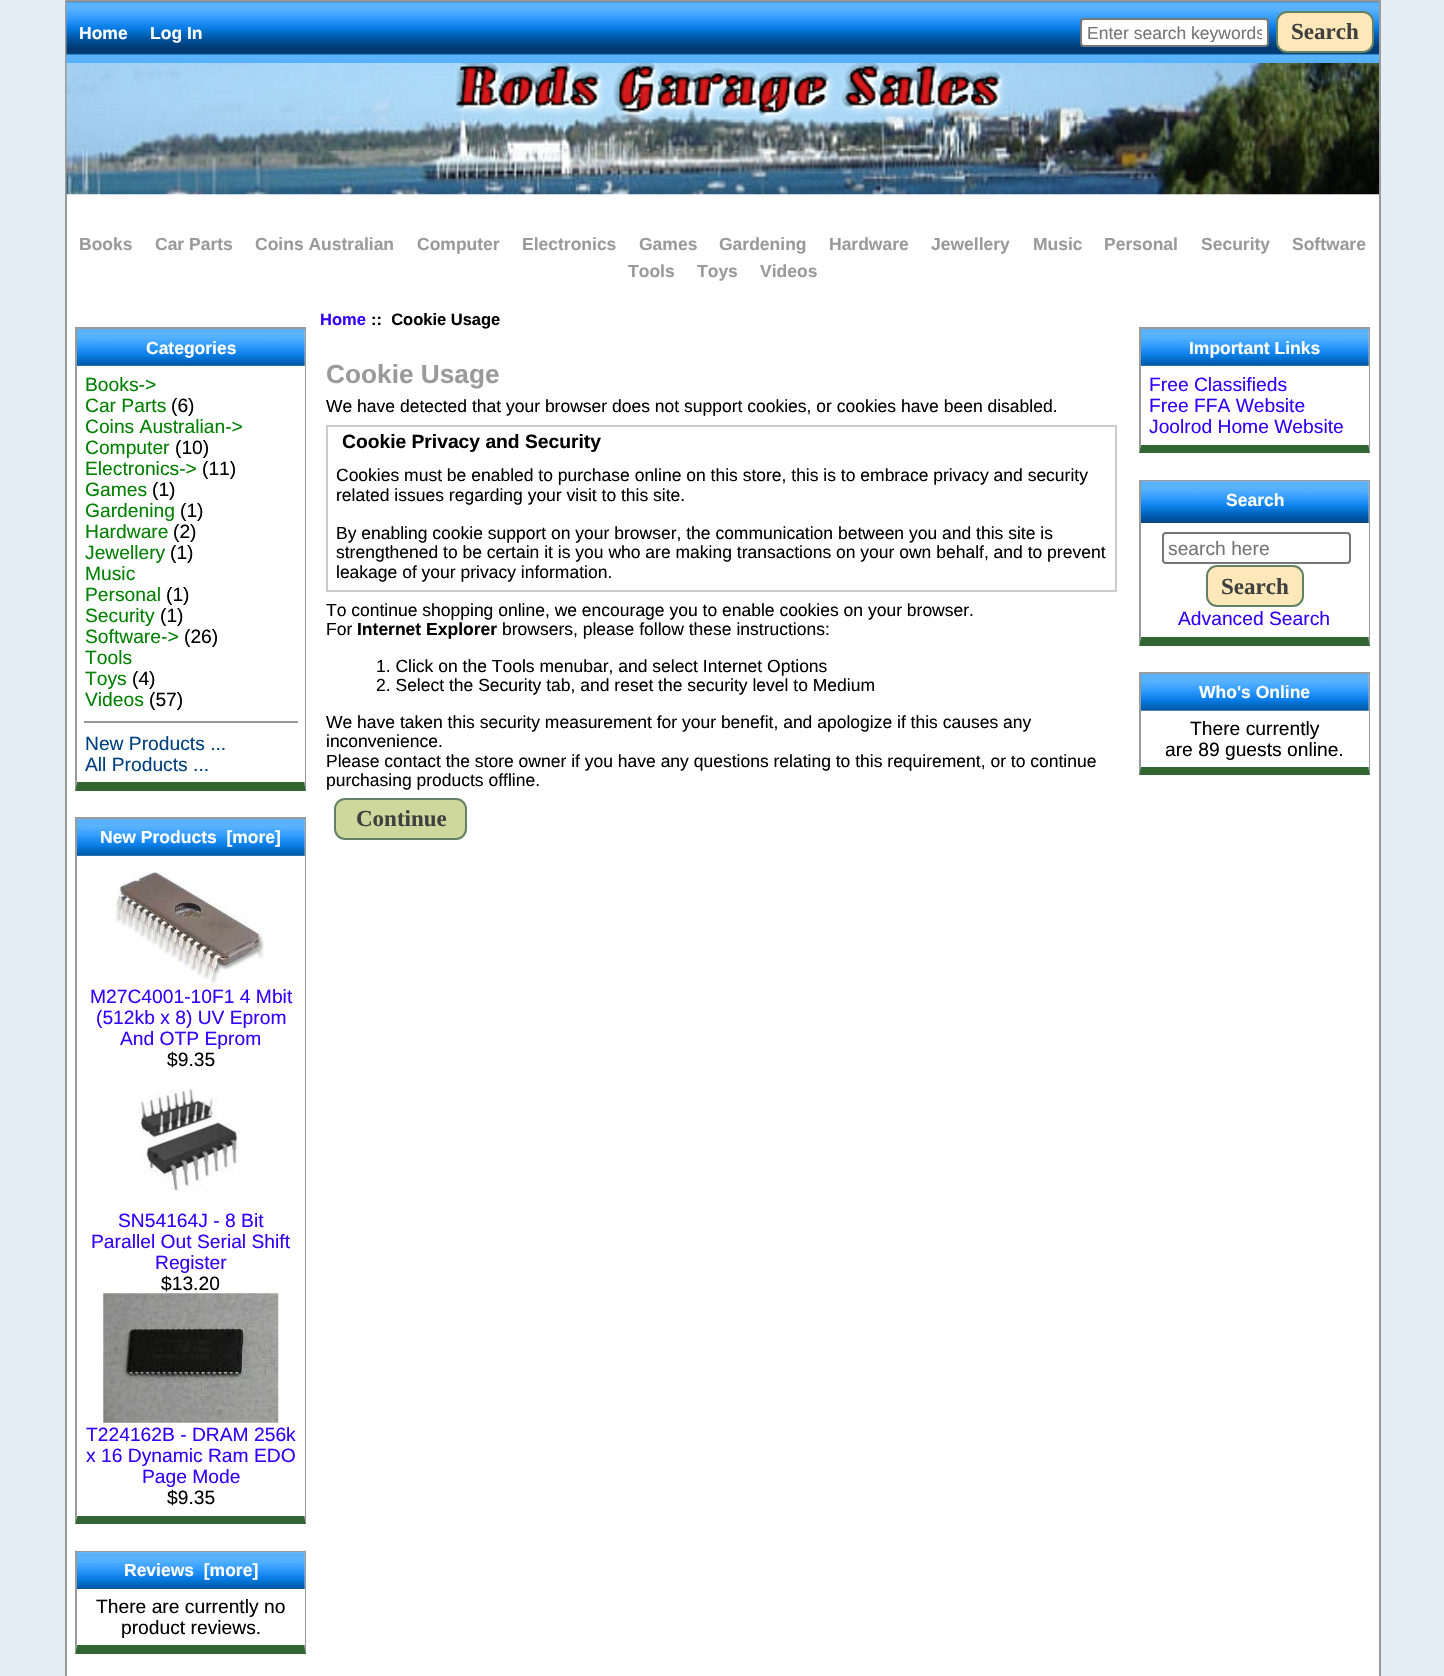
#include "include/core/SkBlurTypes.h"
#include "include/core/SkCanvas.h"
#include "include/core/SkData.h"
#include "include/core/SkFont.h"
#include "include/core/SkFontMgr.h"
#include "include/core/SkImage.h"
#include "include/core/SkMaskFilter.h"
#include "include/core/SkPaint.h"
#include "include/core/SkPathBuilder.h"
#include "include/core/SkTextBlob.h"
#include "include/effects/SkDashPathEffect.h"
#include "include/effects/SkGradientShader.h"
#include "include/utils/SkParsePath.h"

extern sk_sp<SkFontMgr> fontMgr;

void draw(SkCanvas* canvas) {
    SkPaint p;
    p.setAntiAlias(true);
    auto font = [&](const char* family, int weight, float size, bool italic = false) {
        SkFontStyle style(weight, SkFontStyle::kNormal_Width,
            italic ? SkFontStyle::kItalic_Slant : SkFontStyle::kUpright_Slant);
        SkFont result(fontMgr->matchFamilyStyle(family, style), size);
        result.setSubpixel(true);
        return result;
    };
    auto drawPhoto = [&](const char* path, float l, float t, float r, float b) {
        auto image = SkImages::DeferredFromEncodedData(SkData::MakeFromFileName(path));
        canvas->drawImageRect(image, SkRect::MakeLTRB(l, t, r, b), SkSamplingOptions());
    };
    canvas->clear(0xFFE5EDF5);
    p.setColor(0xFFFFFFFF);
    canvas->drawRect(SkRect::MakeLTRB(67, 194, 1379, 1676), p);
    p.setStyle(SkPaint::kStroke_Style);
    p.setStrokeWidth(2);
    p.setColor(0xFF9A9A9A);
    canvas->drawRect(SkRect::MakeLTRB(66, 1, 1380, 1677), p);
    drawPhoto("media/1.png", 66, 1, 1379, 63);
    auto font1 = font("Liberation Sans", 700, 17.5f);
    p.setStyle(SkPaint::kFill_Style);
    p.setColor(0xFFFFFFFF);
    canvas->drawString("Home", 79, 39, font1, p);
    canvas->drawString("Log In", 150, 39, font1, p);
    canvas->drawRoundRect(SkRect::MakeLTRB(1081, 19, 1268, 46), 3, 3, p);
    p.setStyle(SkPaint::kStroke_Style);
    p.setColor(0xFF767676);
    canvas->drawRoundRect(SkRect::MakeLTRB(1081, 19, 1268, 46), 3, 3, p);
    canvas->save();
    canvas->clipRect(SkRect::MakeLTRB(1087, 23, 1262, 42));
    auto font2 = font("Liberation Sans", 400, 17.5f);
    p.setStyle(SkPaint::kFill_Style);
    p.setColor(0xFF757575);
    canvas->drawString("Enter search keywords", 1087, 39, font2, p);
    canvas->restore();
    p.setColor(0xFFFEE8B9);
    canvas->drawRoundRect(SkRect::MakeLTRB(1277, 12, 1373, 52), 10, 10, p);
    p.setStyle(SkPaint::kStroke_Style);
    p.setColor(0xFF638263);
    canvas->drawRoundRect(SkRect::MakeLTRB(1277, 12, 1373, 52), 10, 10, p);
    auto font3 = font("Liberation Serif", 700, 23);
    p.setStyle(SkPaint::kFill_Style);
    p.setColor(0xFF404040);
    canvas->drawString("Search", 1291, 39, font3, p);
    drawPhoto("media/2.png", 66, 63, 1379, 195);
    p.setColor(0xFF9A9A9A);
    {
        const struct { const char* s; float x, y; } items[] = {
            {"Books", 79, 250},
            {"Car Parts", 155, 250},
            {"Coins Australian", 255, 250},
            {"Computer", 417, 250},
            {"Electronics", 522, 250},
            {"Games", 639, 250},
            {"Gardening", 719, 250},
            {"Hardware", 829, 250},
            {"Jewellery", 931, 250},
            {"Music", 1033, 250},
            {"Personal", 1104, 250},
            {"Security", 1201, 250},
            {"Software", 1292, 250},
            {"Tools", 628, 277},
            {"Toys", 697, 277},
            {"Videos", 760, 277},
        };
        for (auto [s, x, y] : items) {
            canvas->drawString(s, x, y, font1, p);
        }
    }
    canvas->drawRect(SkRect::MakeLTRB(75, 327, 306, 329), p);
    canvas->drawPath(SkPathBuilder().moveTo(306, 327).lineTo(306, 791).lineTo(304, 782).lineTo(304, 329).close().detach(), p);
    p.setColor(0xFF336633);
    canvas->drawPath(SkPathBuilder().moveTo(306, 791).lineTo(75, 791).lineTo(77, 782).lineTo(304, 782).close().detach(), p);
    p.setColor(0xFF9A9A9A);
    canvas->drawPath(SkPathBuilder().moveTo(75, 791).lineTo(75, 327).lineTo(77, 329).lineTo(77, 782).close().detach(), p);
    p.setColor(0xFFABBBD3);
    canvas->drawRect(SkRect::MakeLTRB(77, 329, 305, 366), p);
    drawPhoto("media/3.png", 77, 329, 305, 366);
    p.setColor(0xFFFFFFFF);
    canvas->drawString("Categories", 146, 354, font1, p);
    canvas->drawRect(SkRect::MakeLTRB(304, 366, 305, 782), p);
    auto font4 = font("Liberation Sans", 400, 19.25f);
    p.setColor(0xFF008000);
    canvas->drawString("Books->", 85, 391, font4, p);
    canvas->drawString("Car Parts", 85, 412, font4, p);
    p.setColor(0xFF000000);
    canvas->drawString("(6)", 171, 412, font4, p);
    p.setColor(0xFF008000);
    canvas->drawString("Coins Australian->", 85, 433, font4, p);
    canvas->drawString("Computer", 85, 454, font4, p);
    p.setColor(0xFF000000);
    canvas->drawString("(10)", 175, 454, font4, p);
    p.setColor(0xFF008000);
    canvas->drawString("Electronics->", 85, 475, font4, p);
    p.setColor(0xFF000000);
    canvas->drawString("(11)", 202, 475, font4, p);
    p.setColor(0xFF008000);
    canvas->drawString("Games", 85, 496, font4, p);
    p.setColor(0xFF000000);
    canvas->drawString("(1)", 152, 496, font4, p);
    p.setColor(0xFF008000);
    canvas->drawString("Gardening", 85, 517, font4, p);
    p.setColor(0xFF000000);
    canvas->drawString("(1)", 180, 517, font4, p);
    p.setColor(0xFF008000);
    canvas->drawString("Hardware", 85, 538, font4, p);
    p.setColor(0xFF000000);
    canvas->drawString("(2)", 173, 538, font4, p);
    p.setColor(0xFF008000);
    canvas->drawString("Jewellery", 85, 559, font4, p);
    p.setColor(0xFF000000);
    canvas->drawString("(1)", 170, 559, font4, p);
    p.setColor(0xFF008000);
    canvas->drawString("Music", 85, 580, font4, p);
    canvas->drawString("Personal", 85, 601, font4, p);
    p.setColor(0xFF000000);
    canvas->drawString("(1)", 166, 601, font4, p);
    p.setColor(0xFF008000);
    canvas->drawString("Security", 85, 622, font4, p);
    p.setColor(0xFF000000);
    canvas->drawString("(1)", 160, 622, font4, p);
    p.setColor(0xFF008000);
    canvas->drawString("Software->", 85, 643, font4, p);
    p.setColor(0xFF000000);
    canvas->drawString("(26)", 184, 643, font4, p);
    p.setColor(0xFF008000);
    canvas->drawString("Tools", 85, 664, font4, p);
    canvas->drawString("Toys", 85, 685, font4, p);
    p.setColor(0xFF000000);
    canvas->drawString("(4)", 132, 685, font4, p);
    p.setColor(0xFF008000);
    canvas->drawString("Videos", 85, 706, font4, p);
    p.setColor(0xFF000000);
    canvas->drawString("(57)", 149, 706, font4, p);
    p.setColor(0xFF9A9A9A);
    canvas->drawRect(SkRect::MakeLTRB(84, 721, 298, 723), p);
    p.setColor(0xFF004080);
    canvas->drawString("New Products ...", 85, 750, font4, p);
    canvas->drawString("All Products ...", 85, 771, font4, p);
    p.setColor(0xFF9A9A9A);
    canvas->drawRect(SkRect::MakeLTRB(75, 817, 306, 819), p);
    canvas->drawPath(SkPathBuilder().moveTo(306, 817).lineTo(306, 1524).lineTo(304, 1516).lineTo(304, 819).close().detach(), p);
    p.setColor(0xFF336633);
    canvas->drawPath(SkPathBuilder().moveTo(306, 1524).lineTo(75, 1524).lineTo(77, 1516).lineTo(304, 1516).close().detach(), p);
    p.setColor(0xFF9A9A9A);
    canvas->drawPath(SkPathBuilder().moveTo(75, 1524).lineTo(75, 817).lineTo(77, 819).lineTo(77, 1516).close().detach(), p);
    p.setColor(0xFFABBBD3);
    canvas->drawRect(SkRect::MakeLTRB(77, 819, 305, 856), p);
    drawPhoto("media/4.png", 77, 819, 305, 856);
    p.setColor(0xFFFFFFFF);
    canvas->drawString("New Products  [more]", 100, 843, font1, p);
    canvas->drawRect(SkRect::MakeLTRB(304, 856, 305, 1516), p);
    drawPhoto("media/5.png", 113, 872, 264, 984);
    p.setColor(0xFF3300FF);
    {
        const struct { const char* s; float x, y; } items[] = {
            {"M27C4001-10F1 4 Mbit", 90, 1003},
            {"(512kb x 8) UV Eprom", 96, 1024},
            {"And OTP Eprom", 120, 1045},
        };
        for (auto [s, x, y] : items) {
            canvas->drawString(s, x, y, font4, p);
        }
    }
    p.setColor(0xFF000000);
    canvas->drawString("$9.35", 167, 1066, font4, p);
    drawPhoto("media/6.png", 139, 1088, 242, 1192);
    p.setColor(0xFF3300FF);
    {
        const struct { const char* s; float x, y; } items[] = {
            {"SN54164J - 8 Bit", 118, 1227},
            {"Parallel Out Serial Shift", 91, 1248},
            {"Register", 155, 1269},
        };
        for (auto [s, x, y] : items) {
            canvas->drawString(s, x, y, font4, p);
        }
    }
    p.setColor(0xFF000000);
    canvas->drawString("$13.20", 161, 1290, font4, p);
    drawPhoto("media/7.png", 103, 1293, 279, 1423);
    p.setColor(0xFF3300FF);
    {
        const struct { const char* s; float x, y; } items[] = {
            {"T224162B - DRAM 256k", 86, 1441},
            {"x 16 Dynamic Ram EDO", 86, 1462},
            {"Page Mode", 142, 1483},
        };
        for (auto [s, x, y] : items) {
            canvas->drawString(s, x, y, font4, p);
        }
    }
    p.setColor(0xFF000000);
    canvas->drawString("$9.35", 167, 1504, font4, p);
    p.setColor(0xFF9A9A9A);
    canvas->drawRect(SkRect::MakeLTRB(75, 1551, 306, 1552), p);
    canvas->drawPath(SkPathBuilder().moveTo(306, 1550).lineTo(306, 1654).lineTo(304, 1645).lineTo(304, 1552).close().detach(), p);
    p.setColor(0xFF336633);
    canvas->drawPath(SkPathBuilder().moveTo(306, 1654).lineTo(75, 1654).lineTo(77, 1645).lineTo(304, 1645).close().detach(), p);
    p.setColor(0xFF9A9A9A);
    canvas->drawPath(SkPathBuilder().moveTo(75, 1654).lineTo(75, 1550).lineTo(77, 1552).lineTo(77, 1645).close().detach(), p);
    p.setColor(0xFFABBBD3);
    canvas->drawRect(SkRect::MakeLTRB(77, 1552, 305, 1589), p);
    drawPhoto("media/8.png", 77, 1552, 305, 1589);
    p.setColor(0xFFFFFFFF);
    canvas->drawString("Reviews  [more]", 124, 1576, font1, p);
    canvas->drawRect(SkRect::MakeLTRB(304, 1589, 305, 1645), p);
    p.setColor(0xFF000000);
    canvas->drawString("There are currently no", 96, 1613, font4, p);
    canvas->drawString("product reviews.", 121, 1634, font4, p);
    auto font5 = font("Liberation Sans", 700, 16.5f);
    p.setColor(0xFF3300FF);
    canvas->drawString("Home", 320, 325, font5, p);
    p.setColor(0xFF000000);
    canvas->drawString("::  Cookie Usage", 371, 325, font5, p);
    auto font6 = font("Liberation Sans", 700, 26.25f);
    p.setColor(0xFF9A9A9A);
    canvas->drawString("Cookie Usage", 326, 383, font6, p);
    p.setColor(0xFF000000);
    canvas->drawString("We have detected that your browser does not support cookies, or cookies have been disabled.", 326, 412, font2, p);
    p.setStyle(SkPaint::kStroke_Style);
    p.setColor(0xFFCCCCCC);
    canvas->drawRect(SkRect::MakeLTRB(327, 426, 1116, 591), p);
    auto font7 = font("Liberation Sans", 700, 19.25f);
    p.setStyle(SkPaint::kFill_Style);
    p.setColor(0xFF000000);
    canvas->drawString("Cookie Privacy and Security", 342, 448, font7, p);
    {
        const struct { const char* s; float x, y; } items[] = {
            {"Cookies must be enabled to purchase online on this store, this is to embrace privacy and security", 336, 481},
            {"related issues regarding your visit to this site.", 336, 501},
            {"By enabling cookie support on your browser, the communication between you and this site is", 336, 539},
            {"strengthened to be certain it is you who are making transactions on your own behalf, and to prevent", 336, 558},
            {"leakage of your privacy information.", 336, 578},
            {"To continue shopping online, we encourage you to enable cookies on your browser.", 326, 616},
            {"For", 326, 635},
        };
        for (auto [s, x, y] : items) {
            canvas->drawString(s, x, y, font2, p);
        }
    }
    canvas->drawString("Internet Explorer", 357, 635, font1, p);
    {
        const struct { const char* s; float x, y; } items[] = {
            {"browsers, please follow these instructions:", 502, 635},
            {"1. Click on the Tools menubar, and select Internet Options", 376, 672},
            {"2. Select the Security tab, and reset the security level to Medium", 376, 691},
            {"We have taken this security measurement for your benefit, and apologize if this causes any", 326, 728},
            {"inconvenience.", 326, 747},
            {"Please contact the store owner if you have any questions relating to this requirement, or to continue", 326, 767},
            {"purchasing products offline.", 326, 786},
        };
        for (auto [s, x, y] : items) {
            canvas->drawString(s, x, y, font2, p);
        }
    }
    p.setColor(0xFFCED79C);
    canvas->drawRoundRect(SkRect::MakeLTRB(335, 799, 466, 839), 10, 10, p);
    p.setStyle(SkPaint::kStroke_Style);
    p.setColor(0xFF638263);
    canvas->drawRoundRect(SkRect::MakeLTRB(335, 799, 466, 839), 10, 10, p);
    p.setStyle(SkPaint::kFill_Style);
    p.setColor(0xFF404040);
    canvas->drawString("Continue", 356, 826, font3, p);
    p.setColor(0xFF9A9A9A);
    canvas->drawRect(SkRect::MakeLTRB(1139, 327, 1370, 329), p);
    canvas->drawPath(SkPathBuilder().moveTo(1370, 327).lineTo(1370, 453).lineTo(1368, 444).lineTo(1368, 329).close().detach(), p);
    p.setColor(0xFF336633);
    canvas->drawPath(SkPathBuilder().moveTo(1370, 453).lineTo(1139, 453).lineTo(1141, 444).lineTo(1368, 444).close().detach(), p);
    p.setColor(0xFF9A9A9A);
    canvas->drawPath(SkPathBuilder().moveTo(1139, 453).lineTo(1139, 327).lineTo(1141, 329).lineTo(1141, 444).close().detach(), p);
    p.setColor(0xFFABBBD3);
    canvas->drawRect(SkRect::MakeLTRB(1141, 329, 1369, 366), p);
    drawPhoto("media/9.png", 1141, 329, 1369, 366);
    p.setColor(0xFFFFFFFF);
    canvas->drawString("Important Links", 1189, 354, font1, p);
    canvas->drawRect(SkRect::MakeLTRB(1141, 366, 1369, 445), p);
    p.setColor(0xFF3300FF);
    {
        const struct { const char* s; float x, y; } items[] = {
            {"Free Classifieds", 1149, 391},
            {"Free FFA Website", 1149, 412},
            {"Joolrod Home Website", 1149, 433},
        };
        for (auto [s, x, y] : items) {
            canvas->drawString(s, x, y, font4, p);
        }
    }
    p.setColor(0xFF9A9A9A);
    canvas->drawRect(SkRect::MakeLTRB(1139, 480, 1370, 481), p);
    canvas->drawPath(SkPathBuilder().moveTo(1370, 480).lineTo(1370, 646).lineTo(1368, 637).lineTo(1368, 481).close().detach(), p);
    p.setColor(0xFF336633);
    canvas->drawPath(SkPathBuilder().moveTo(1370, 646).lineTo(1139, 646).lineTo(1141, 637).lineTo(1368, 637).close().detach(), p);
    p.setColor(0xFF9A9A9A);
    canvas->drawPath(SkPathBuilder().moveTo(1139, 646).lineTo(1139, 480).lineTo(1141, 481).lineTo(1141, 637).close().detach(), p);
    p.setColor(0xFFABBBD3);
    canvas->drawRect(SkRect::MakeLTRB(1141, 481, 1369, 523), p);
    drawPhoto("media/10.png", 1141, 481, 1369, 523);
    p.setColor(0xFFFFFFFF);
    canvas->drawString("Search", 1226, 506, font1, p);
    canvas->drawRect(SkRect::MakeLTRB(1368, 523, 1369, 637), p);
    p.setStyle(SkPaint::kStroke_Style);
    p.setColor(0xFF767676);
    canvas->drawRoundRect(SkRect::MakeLTRB(1163, 533, 1350, 563), 3, 3, p);
    p.setStyle(SkPaint::kFill_Style);
    p.setColor(0xFF757575);
    canvas->drawString("search here", 1168, 555, font4, p);
    p.setColor(0xFFFEE8B9);
    canvas->drawRoundRect(SkRect::MakeLTRB(1207, 566, 1303, 606), 10, 10, p);
    p.setStyle(SkPaint::kStroke_Style);
    p.setColor(0xFF638263);
    canvas->drawRoundRect(SkRect::MakeLTRB(1207, 566, 1303, 606), 10, 10, p);
    p.setStyle(SkPaint::kFill_Style);
    p.setColor(0xFF404040);
    canvas->drawString("Search", 1221, 594, font3, p);
    p.setColor(0xFF3300FF);
    canvas->drawString("Advanced Search", 1178, 625, font4, p);
    p.setColor(0xFF9A9A9A);
    canvas->drawRect(SkRect::MakeLTRB(1139, 672, 1370, 674), p);
    canvas->drawPath(SkPathBuilder().moveTo(1370, 672).lineTo(1370, 775).lineTo(1368, 766).lineTo(1368, 674).close().detach(), p);
    p.setColor(0xFF336633);
    canvas->drawPath(SkPathBuilder().moveTo(1370, 775).lineTo(1139, 775).lineTo(1141, 766).lineTo(1368, 766).close().detach(), p);
    p.setColor(0xFF9A9A9A);
    canvas->drawPath(SkPathBuilder().moveTo(1139, 775).lineTo(1139, 672).lineTo(1141, 674).lineTo(1141, 766).close().detach(), p);
    p.setColor(0xFFABBBD3);
    canvas->drawRect(SkRect::MakeLTRB(1141, 674, 1369, 711), p);
    drawPhoto("media/11.png", 1141, 673, 1369, 711);
    p.setColor(0xFFFFFFFF);
    canvas->drawString("Who's Online", 1199, 698, font1, p);
    canvas->drawRect(SkRect::MakeLTRB(1141, 711, 1369, 767), p);
    p.setColor(0xFF000000);
    canvas->drawString("There currently", 1190, 735, font4, p);
    canvas->drawString("are 89 guests online.", 1165, 756, font4, p);
}
